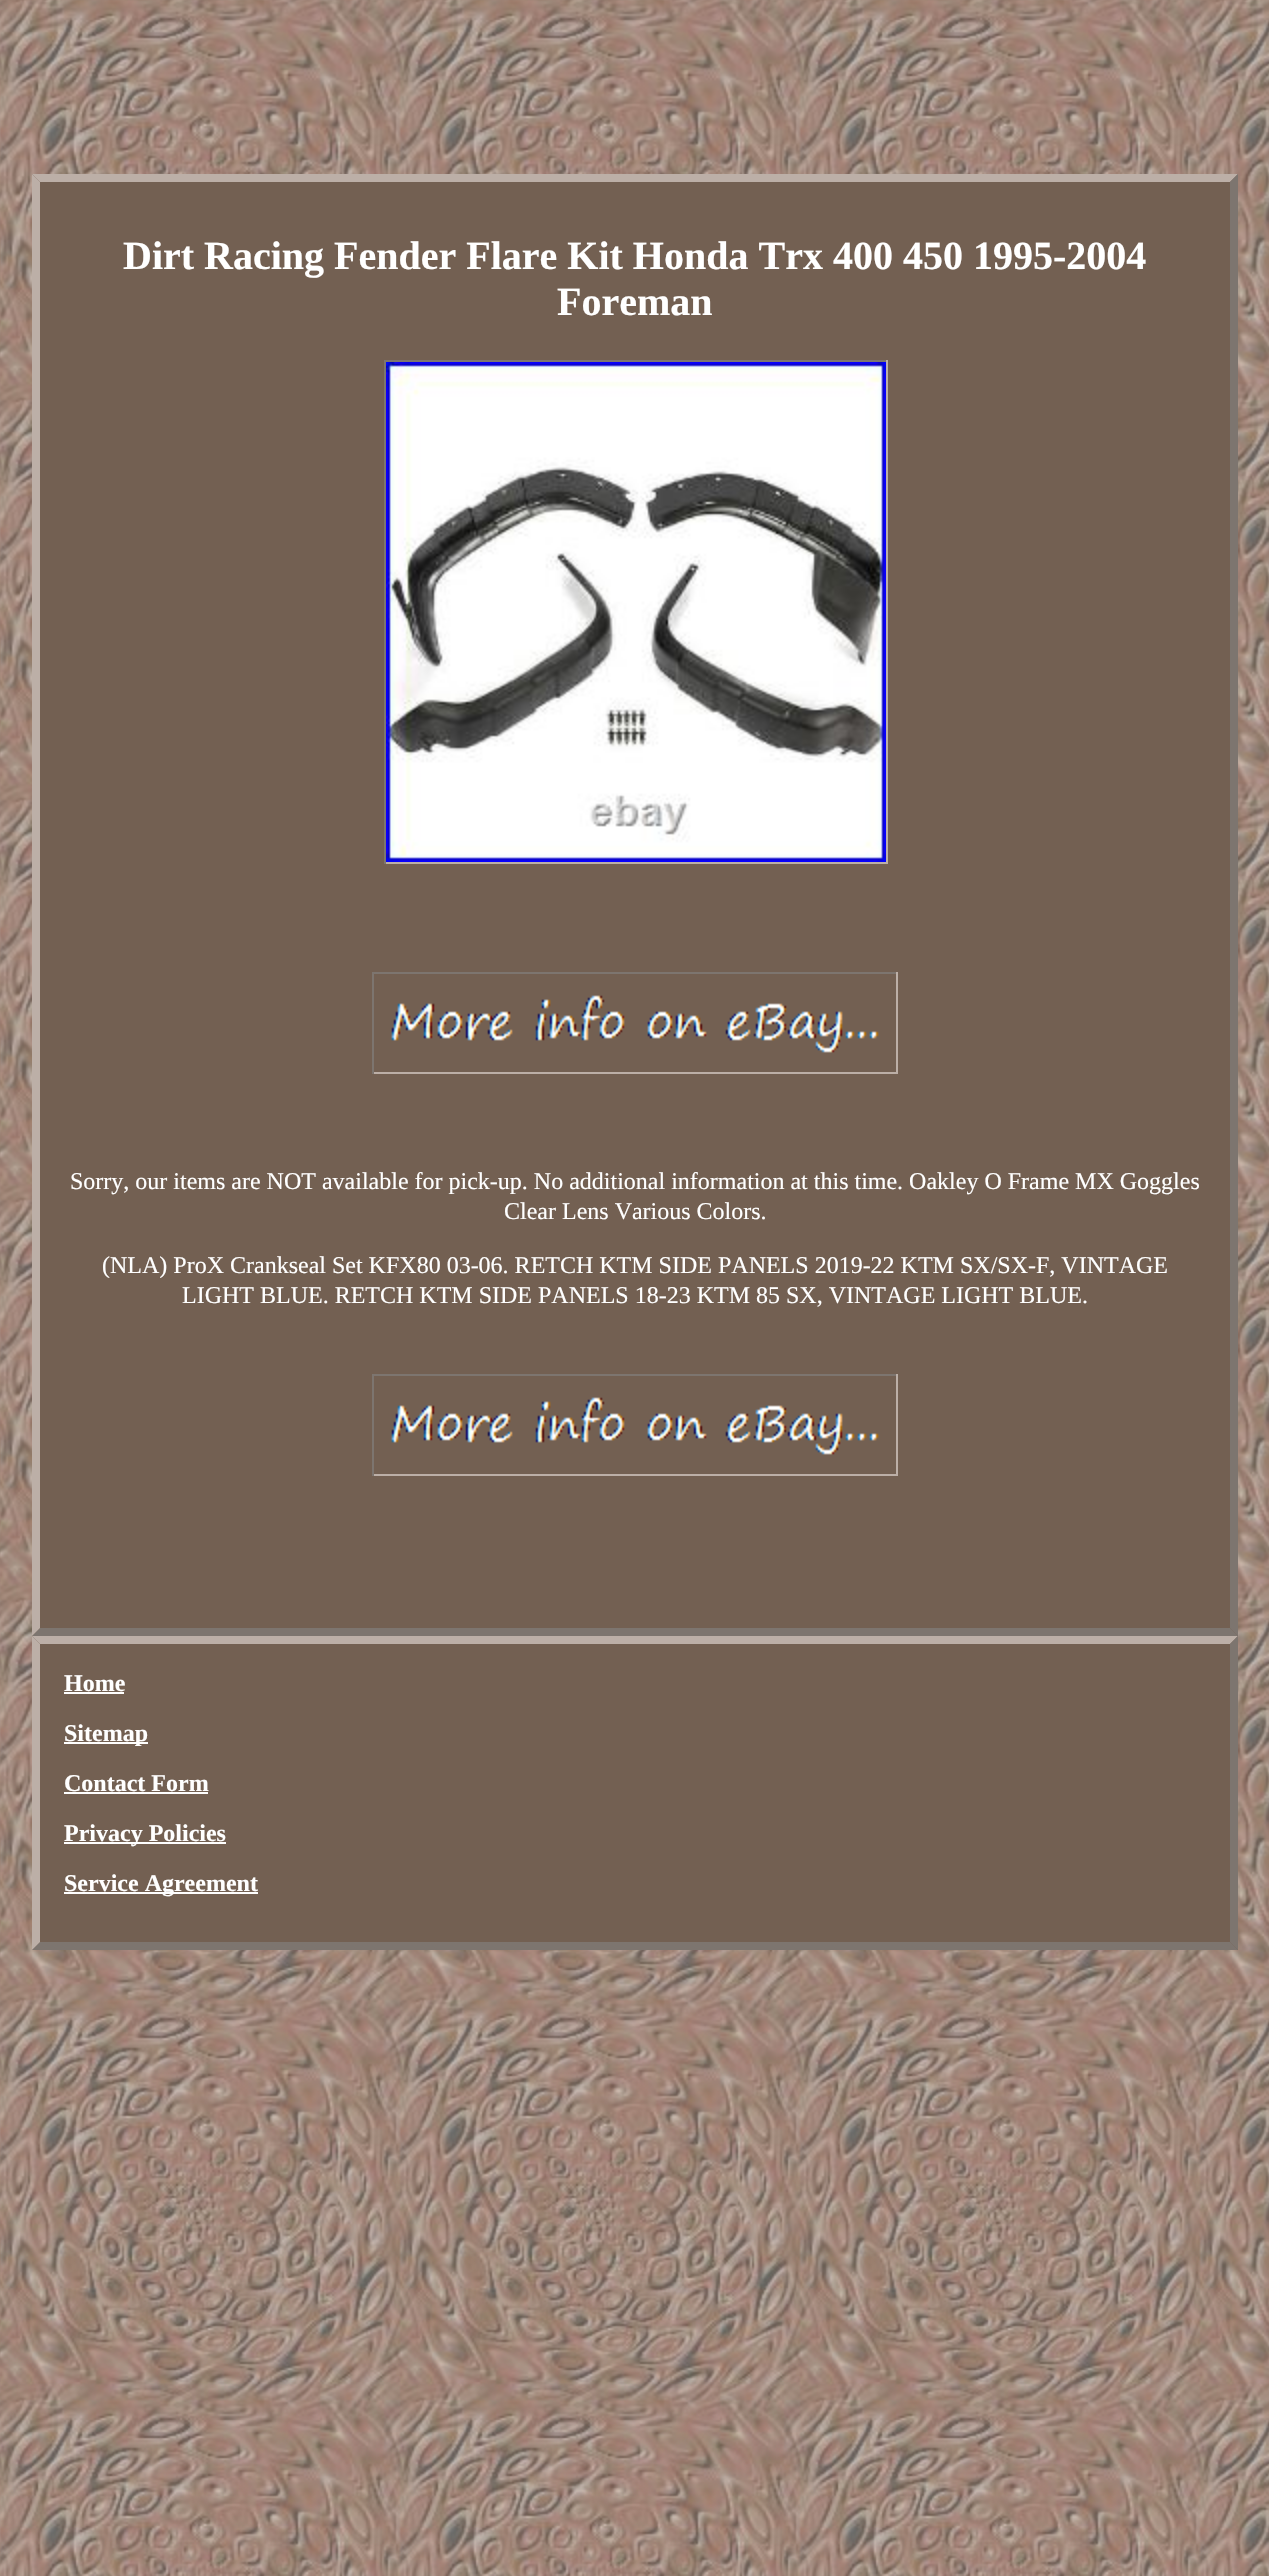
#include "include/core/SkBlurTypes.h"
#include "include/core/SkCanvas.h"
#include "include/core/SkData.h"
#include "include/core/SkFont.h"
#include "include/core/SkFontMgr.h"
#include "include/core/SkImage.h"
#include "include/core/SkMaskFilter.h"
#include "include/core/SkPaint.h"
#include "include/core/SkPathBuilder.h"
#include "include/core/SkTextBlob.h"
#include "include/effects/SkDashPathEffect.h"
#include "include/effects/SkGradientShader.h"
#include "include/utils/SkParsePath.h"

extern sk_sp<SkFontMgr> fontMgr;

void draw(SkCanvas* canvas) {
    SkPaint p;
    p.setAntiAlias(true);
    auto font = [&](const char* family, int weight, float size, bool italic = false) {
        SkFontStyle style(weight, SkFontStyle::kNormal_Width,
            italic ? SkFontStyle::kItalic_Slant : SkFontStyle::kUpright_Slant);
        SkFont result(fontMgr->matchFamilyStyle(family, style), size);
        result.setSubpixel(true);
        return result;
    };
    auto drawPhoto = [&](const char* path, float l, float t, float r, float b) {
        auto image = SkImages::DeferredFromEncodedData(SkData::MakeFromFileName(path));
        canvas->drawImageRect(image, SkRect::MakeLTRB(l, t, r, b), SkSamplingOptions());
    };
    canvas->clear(0xFFFFFFFF);
    drawPhoto("media/1.png", 0, 0, 1269, 2576);
    p.setColor(0xFF736052);
    canvas->drawRect(SkRect::MakeLTRB(32, 174, 1238, 1950), p);
    p.setColor(0xFFBCAFA7);
    canvas->drawPath(SkPathBuilder().moveTo(32, 174).lineTo(1238, 174).lineTo(1230, 182).lineTo(40, 182).close().detach(), p);
    p.setColor(0xFF7D756F);
    canvas->drawPath(SkPathBuilder().moveTo(1238, 174).lineTo(1238, 1636).lineTo(1230, 1628).lineTo(1230, 182).close().detach(), p);
    canvas->drawPath(SkPathBuilder().moveTo(1238, 1636).lineTo(32, 1636).lineTo(40, 1628).lineTo(1230, 1628).close().detach(), p);
    p.setColor(0xFFBCAFA7);
    canvas->drawPath(SkPathBuilder().moveTo(32, 1636).lineTo(32, 174).lineTo(40, 182).lineTo(40, 1628).close().detach(), p);
    auto font1 = font("Liberation Serif", 700, 40);
    p.setColor(0xFFFFFFFF);
    canvas->drawString("Dirt Racing Fender Flare Kit Honda Trx 400 450 1995-2004", 123, 269, font1, p);
    canvas->drawString("Foreman", 557, 315, font1, p);
    {
        const struct { float l, t, r, b; SkColor color; } items[] = {
            {384, 360, 888, 362, 0xFF7D756F},
            {886, 360, 888, 864, 0xFFBCAFA7},
            {384, 862, 888, 864, 0xFFBCAFA7},
            {384, 360, 386, 864, 0xFF7D756F},
        };
        for (auto [l, t, r, b, color] : items) {
            p.setColor(color);
            canvas->drawRect(SkRect::MakeLTRB(l, t, r, b), p);
        }
    }
    drawPhoto("media/2.png", 386, 362, 886, 862);
    {
        const struct { float l, t, r, b; SkColor color; } items[] = {
            {372, 972, 898, 974, 0xFF7D756F},
            {896, 972, 898, 1074, 0xFFBCAFA7},
            {372, 1072, 898, 1074, 0xFFBCAFA7},
            {372, 972, 374, 1074, 0xFF7D756F},
        };
        for (auto [l, t, r, b, color] : items) {
            p.setColor(color);
            canvas->drawRect(SkRect::MakeLTRB(l, t, r, b), p);
        }
    }
    drawPhoto("media/3.png", 391, 995, 879, 1053);
    auto font2 = font("Liberation Serif", 400, 24);
    p.setColor(0xFFFFFFFF);
    {
        const struct { const char* s; float x, y; } items[] = {
            {"Sorry, our items are NOT available for pick-up. No additional information at this time. Oakley O Frame MX Goggles", 70, 1189},
            {"Clear Lens Various Colors.", 504, 1219},
            {"(NLA) ProX Crankseal Set KFX80 03-06. RETCH KTM SIDE PANELS 2019-22 KTM SX/SX-F, VINTAGE", 102, 1273},
            {"LIGHT BLUE. RETCH KTM SIDE PANELS 18-23 KTM 85 SX, VINTAGE LIGHT BLUE.", 182, 1303},
        };
        for (auto [s, x, y] : items) {
            canvas->drawString(s, x, y, font2, p);
        }
    }
    {
        const struct { float l, t, r, b; SkColor color; } items[] = {
            {372, 1374, 898, 1376, 0xFF7D756F},
            {896, 1374, 898, 1476, 0xFFBCAFA7},
            {372, 1474, 898, 1476, 0xFFBCAFA7},
            {372, 1374, 374, 1476, 0xFF7D756F},
        };
        for (auto [l, t, r, b, color] : items) {
            p.setColor(color);
            canvas->drawRect(SkRect::MakeLTRB(l, t, r, b), p);
        }
    }
    drawPhoto("media/3.png", 391, 1397, 879, 1455);
    p.setColor(0xFFBCAFA7);
    canvas->drawPath(SkPathBuilder().moveTo(32, 1636).lineTo(1238, 1636).lineTo(1230, 1644).lineTo(40, 1644).close().detach(), p);
    p.setColor(0xFF7D756F);
    canvas->drawPath(SkPathBuilder().moveTo(1238, 1636).lineTo(1238, 1950).lineTo(1230, 1942).lineTo(1230, 1644).close().detach(), p);
    canvas->drawPath(SkPathBuilder().moveTo(1238, 1950).lineTo(32, 1950).lineTo(40, 1942).lineTo(1230, 1942).close().detach(), p);
    p.setColor(0xFFBCAFA7);
    canvas->drawPath(SkPathBuilder().moveTo(32, 1950).lineTo(32, 1636).lineTo(40, 1644).lineTo(40, 1942).close().detach(), p);
    auto font3 = font("Liberation Serif", 700, 24);
    p.setColor(0xFFFFFFFF);
    canvas->drawString("Home", 64, 1691, font3, p);
    canvas->drawRect(SkRect::MakeLTRB(64, 1692, 124, 1694), p);
    canvas->drawRect(SkRect::MakeLTRB(64, 1742, 148, 1744), p);
    canvas->drawString("Sitemap", 64, 1741, font3, p);
    canvas->drawString("Contact Form", 64, 1791, font3, p);
    canvas->drawRect(SkRect::MakeLTRB(64, 1792, 208, 1794), p);
    canvas->drawRect(SkRect::MakeLTRB(64, 1842, 226, 1844), p);
    canvas->drawString("Privacy Policies", 64, 1841, font3, p);
    canvas->drawRect(SkRect::MakeLTRB(64, 1892, 258, 1894), p);
    canvas->drawString("Service Agreement", 64, 1891, font3, p);
}
